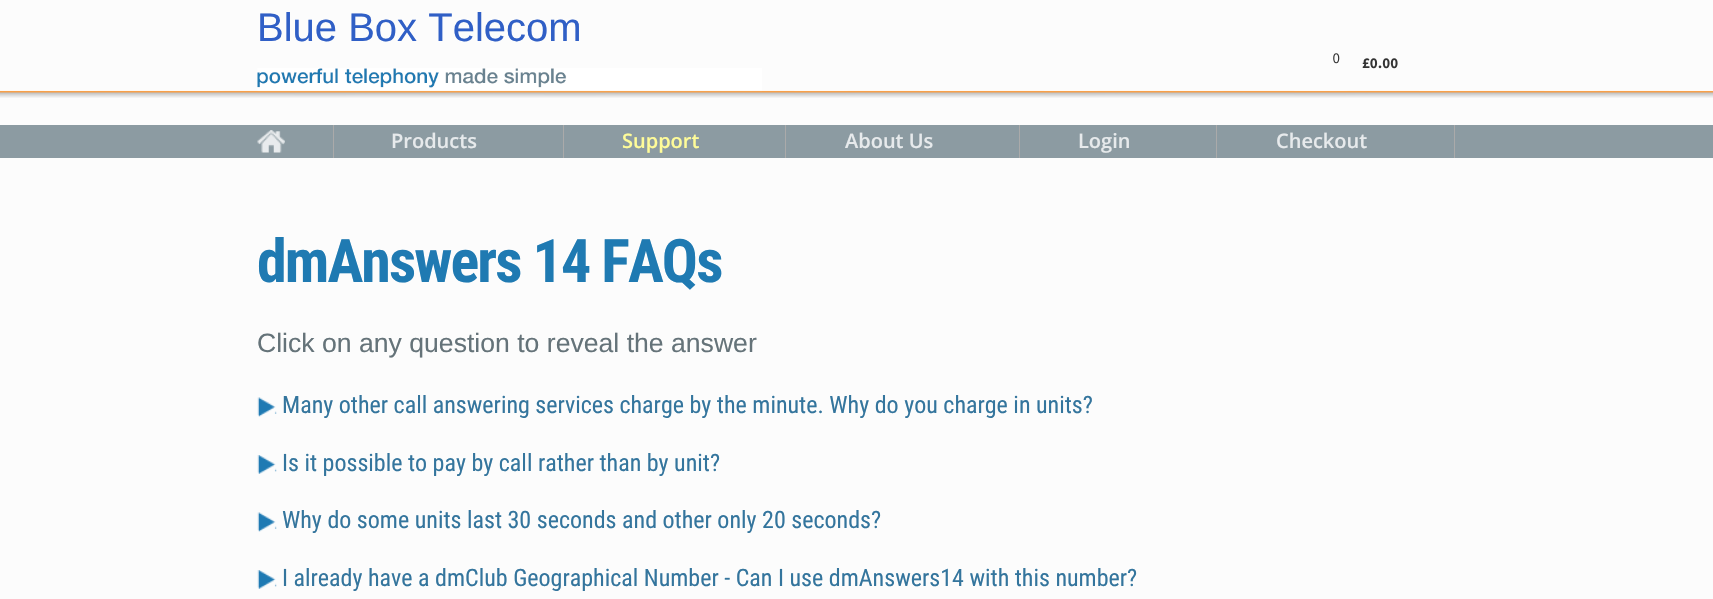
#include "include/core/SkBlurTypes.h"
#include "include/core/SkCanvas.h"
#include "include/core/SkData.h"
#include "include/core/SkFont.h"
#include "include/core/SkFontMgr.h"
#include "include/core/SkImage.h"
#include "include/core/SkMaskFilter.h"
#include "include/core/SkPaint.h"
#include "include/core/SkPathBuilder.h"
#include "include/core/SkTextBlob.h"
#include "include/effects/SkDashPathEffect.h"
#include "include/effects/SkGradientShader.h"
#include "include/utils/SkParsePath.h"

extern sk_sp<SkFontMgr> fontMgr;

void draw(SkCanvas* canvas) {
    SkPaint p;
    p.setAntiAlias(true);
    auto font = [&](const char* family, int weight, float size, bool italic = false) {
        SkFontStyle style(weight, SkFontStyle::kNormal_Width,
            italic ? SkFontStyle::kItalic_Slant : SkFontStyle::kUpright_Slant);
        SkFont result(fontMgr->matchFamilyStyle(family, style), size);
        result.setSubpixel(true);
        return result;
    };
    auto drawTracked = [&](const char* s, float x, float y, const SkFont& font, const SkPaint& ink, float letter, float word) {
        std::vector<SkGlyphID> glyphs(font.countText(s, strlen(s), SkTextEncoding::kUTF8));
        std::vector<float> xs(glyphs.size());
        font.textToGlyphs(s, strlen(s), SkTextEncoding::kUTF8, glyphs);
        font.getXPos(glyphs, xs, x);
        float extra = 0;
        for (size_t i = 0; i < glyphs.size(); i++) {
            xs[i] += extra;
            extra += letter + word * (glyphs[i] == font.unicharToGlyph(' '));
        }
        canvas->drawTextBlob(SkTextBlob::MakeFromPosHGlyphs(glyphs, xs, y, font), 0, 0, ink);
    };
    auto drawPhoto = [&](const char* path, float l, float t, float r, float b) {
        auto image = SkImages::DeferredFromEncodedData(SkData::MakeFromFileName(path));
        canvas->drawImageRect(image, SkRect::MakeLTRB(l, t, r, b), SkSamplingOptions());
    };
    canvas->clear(0xFFFCFCFC);
    drawPhoto("media/1.png", 0, 90, 1713, 98);
    drawPhoto("media/2.png", 257, 68, 762, 93);
    auto font1 = font("Liberation Sans", 400, 40);
    p.setColor(0xFF305FC6);
    canvas->drawString("Blue Box Telecom", 257, 41, font1, p);
    drawPhoto("media/3.png", 1333, 53, 1398, 69);
    p.setColor(0xFF8C9BA2);
    canvas->drawRect(SkRect::MakeLTRB(0, 125, 1713, 158), p);
    drawPhoto("media/4.png", 257, 130, 285, 153);
    p.setColor(0xFFAAAAAA);
    canvas->drawRect(SkRect::MakeLTRB(333, 125, 334, 158), p);
    auto font2 = font("Open Sans", 600, 20);
    p.setColor(0xFFE7EAEC);
    canvas->drawString("Products", 391, 148, font2, p);
    p.setColor(0xFFAAAAAA);
    canvas->drawRect(SkRect::MakeLTRB(563, 125, 564, 158), p);
    p.setColor(0xFFFFFC99);
    canvas->drawString("Support", 622, 148, font2, p);
    p.setColor(0xFFAAAAAA);
    canvas->drawRect(SkRect::MakeLTRB(785, 125, 786, 158), p);
    p.setColor(0xFFE7EAEC);
    canvas->drawString("About Us", 845, 148, font2, p);
    p.setColor(0xFFAAAAAA);
    canvas->drawRect(SkRect::MakeLTRB(1019, 125, 1020, 158), p);
    p.setColor(0xFFE7EAEC);
    canvas->drawString("Login", 1078, 148, font2, p);
    p.setColor(0xFFAAAAAA);
    canvas->drawRect(SkRect::MakeLTRB(1454, 125, 1455, 158), p);
    canvas->drawRect(SkRect::MakeLTRB(1216, 125, 1217, 158), p);
    p.setColor(0xFFE7EAEC);
    canvas->drawString("Checkout", 1276, 148, font2, p);
    auto font3 = font("Roboto Condensed", 700, 60);
    p.setColor(0xFF1F7AB2);
    drawTracked("dmAnswers 14 FAQs", 257, 282, font3, p, -1.9f, 0);
    auto font4 = font("Liberation Sans", 400, 26.6f);
    p.setColor(0xFF657379);
    canvas->drawString("Click on any question to reveal the answer", 257, 352, font4, p);
    drawPhoto("media/5.png", 257, 397, 277, 417);
    auto font5 = font("Roboto Condensed", 400, 24);
    p.setColor(0xFF34759D);
    canvas->drawString("Many other call answering services charge by the minute. Why do you charge in units?", 282, 413, font5, p);
    drawPhoto("media/6.png", 257, 455, 277, 474);
    canvas->drawString("Is it possible to pay by call rather than by unit?", 282, 471, font5, p);
    drawPhoto("media/7.png", 257, 512, 277, 532);
    canvas->drawString("Why do some units last 30 seconds and other only 20 seconds?", 282, 528, font5, p);
    drawPhoto("media/6.png", 257, 570, 277, 589);
    canvas->drawString("I already have a dmClub Geographical Number - Can I use dmAnswers14 with this number?", 282, 586, font5, p);
}
